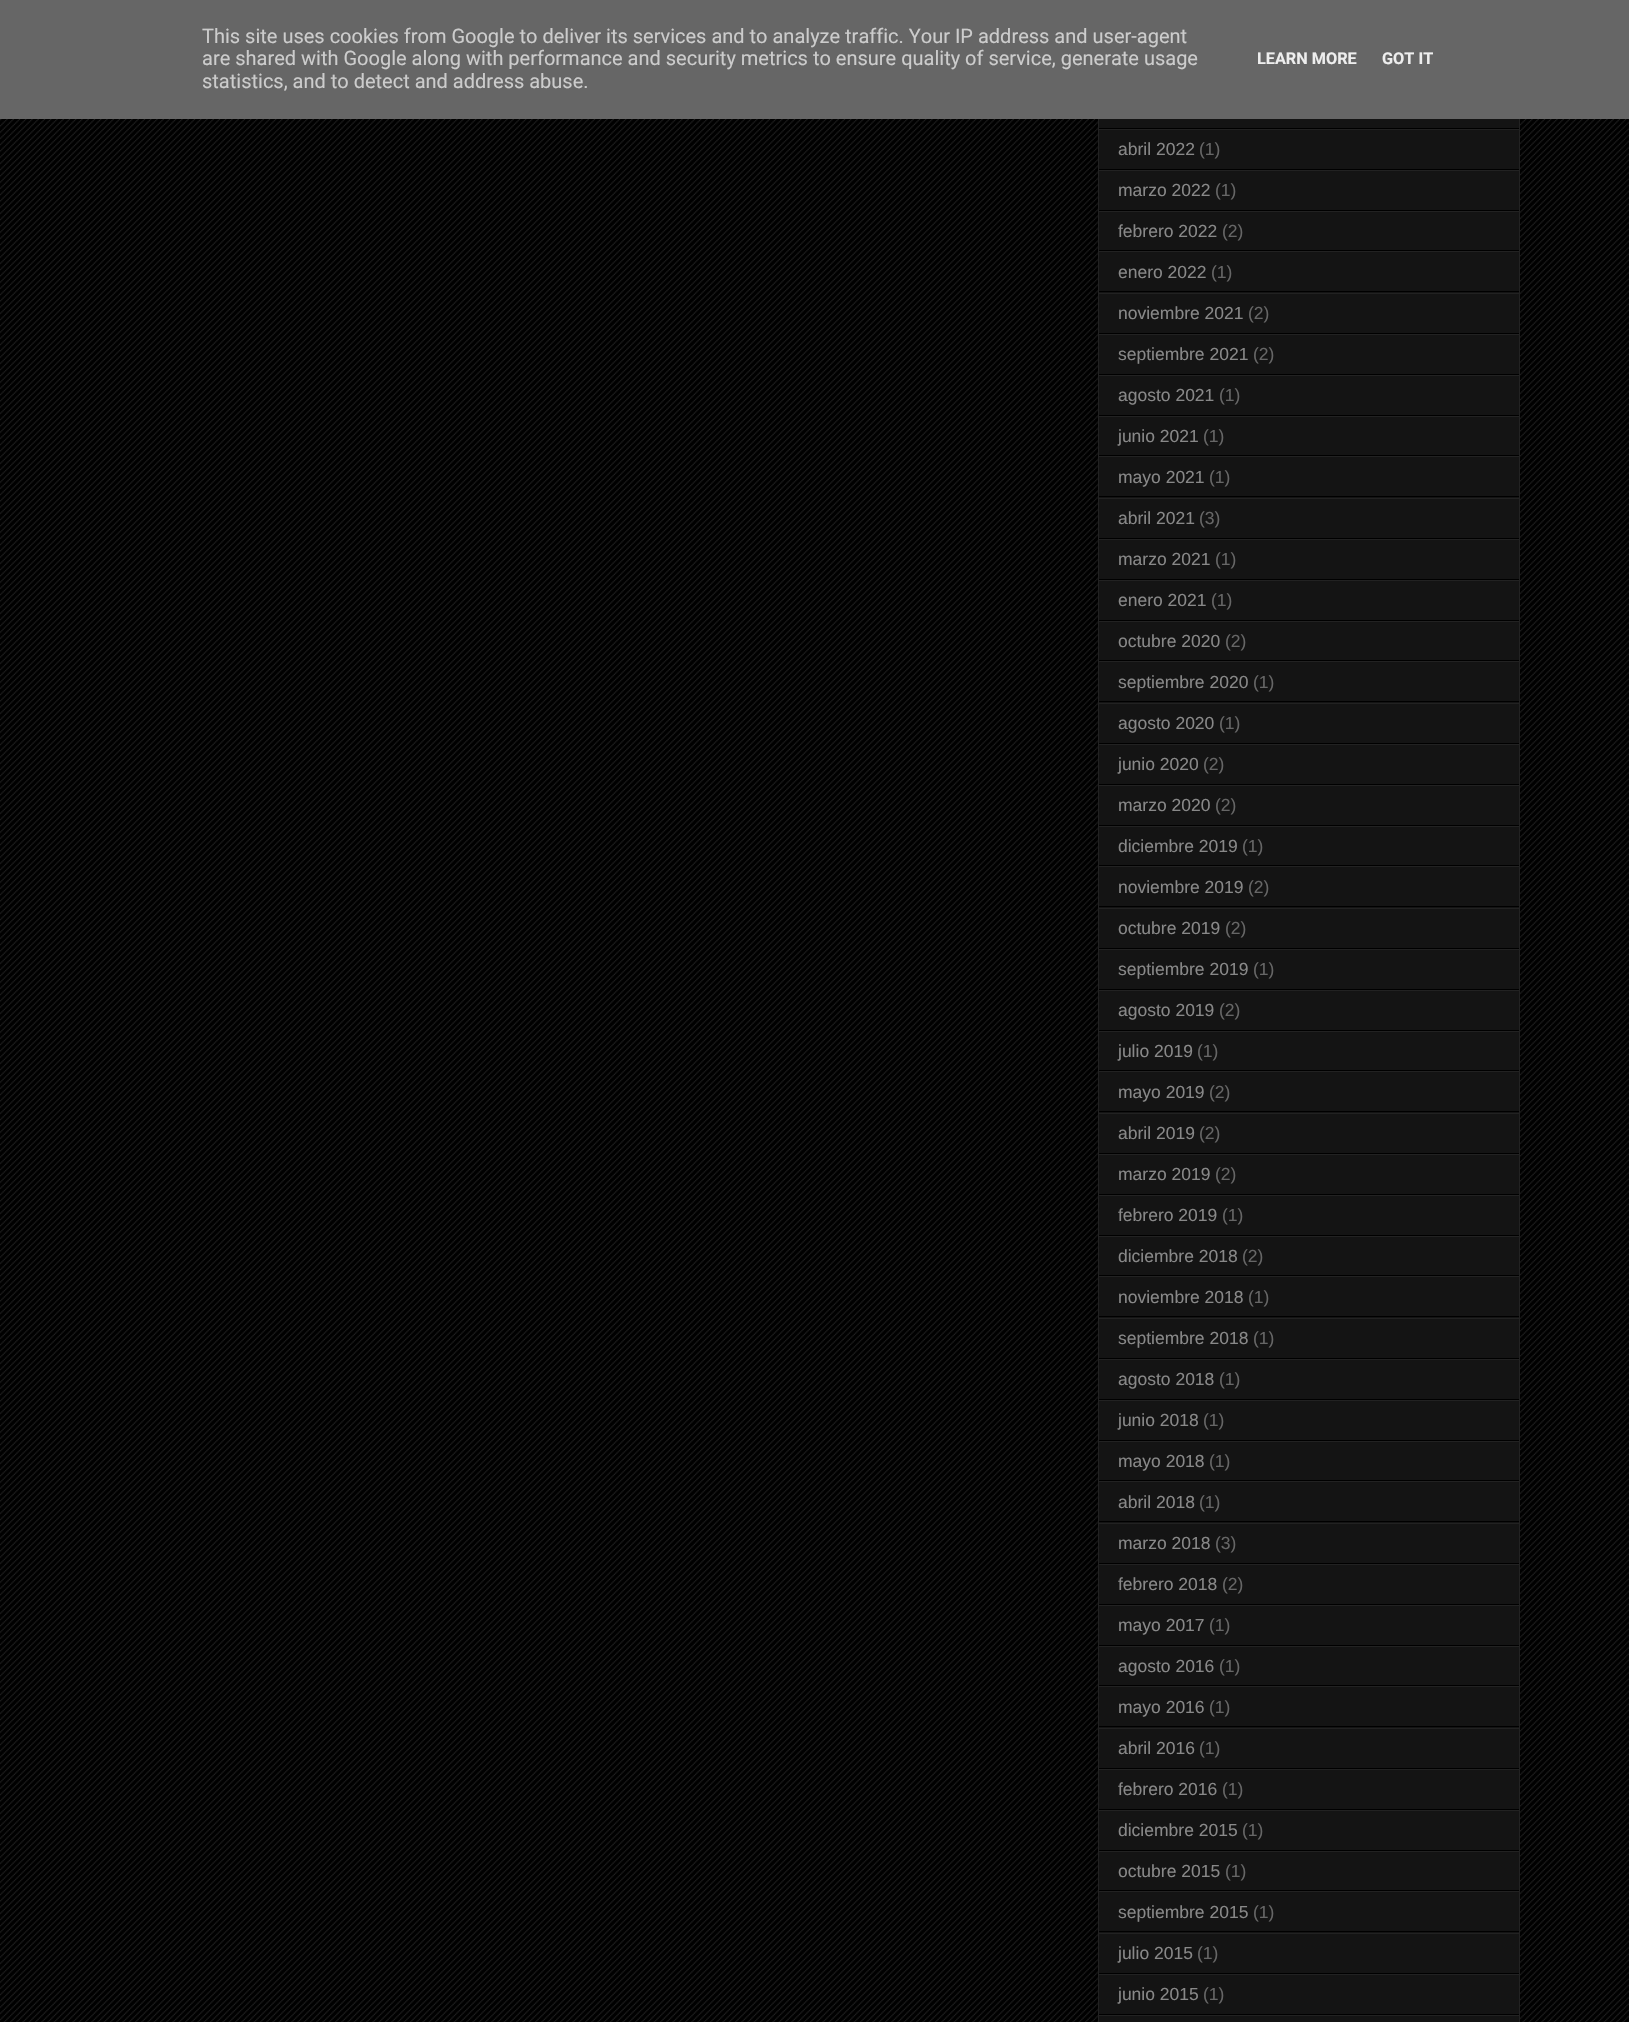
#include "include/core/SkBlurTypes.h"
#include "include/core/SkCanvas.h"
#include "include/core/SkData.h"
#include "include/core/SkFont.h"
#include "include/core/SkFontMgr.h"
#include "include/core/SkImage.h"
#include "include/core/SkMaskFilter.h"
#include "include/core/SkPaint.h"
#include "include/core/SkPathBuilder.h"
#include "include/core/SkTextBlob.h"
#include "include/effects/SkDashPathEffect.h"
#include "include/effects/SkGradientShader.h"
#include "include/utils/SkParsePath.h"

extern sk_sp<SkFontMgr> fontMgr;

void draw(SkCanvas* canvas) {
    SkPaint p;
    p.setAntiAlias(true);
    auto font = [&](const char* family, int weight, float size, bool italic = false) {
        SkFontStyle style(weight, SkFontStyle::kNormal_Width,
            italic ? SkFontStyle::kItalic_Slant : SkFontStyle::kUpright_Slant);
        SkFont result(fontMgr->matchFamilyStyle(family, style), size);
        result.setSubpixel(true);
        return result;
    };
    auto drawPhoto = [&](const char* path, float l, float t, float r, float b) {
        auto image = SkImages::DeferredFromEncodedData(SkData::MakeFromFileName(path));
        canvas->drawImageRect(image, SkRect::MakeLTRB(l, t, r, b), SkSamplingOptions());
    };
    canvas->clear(0xFF000000);
    drawPhoto("media/1.png", 0, 119, 1629, 2022);
    p.setColor(0xFF141414);
    canvas->drawRect(SkRect::MakeLTRB(1099, 119, 1519, 2022), p);
    p.setStyle(SkPaint::kStroke_Style);
    p.setStrokeWidth(1);
    p.setColor(0xFF222222);
    canvas->drawRect(SkRect::MakeLTRB(1098.5f, -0.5f, 1519.5f, 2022.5f), p);
    p.setStyle(SkPaint::kFill_Style);
    p.setColor(0xFF666666);
    canvas->drawRect(SkRect::MakeLTRB(0, 0, 1629, 119), p);
    auto font1 = font("Roboto", 400, 20);
    p.setColor(0xFFCCCCCC);
    {
        const struct { const char* s; float x, y; } items[] = {
            {"This site uses cookies from Google to deliver its services and to analyze traffic. Your IP address and user-agent", 202, 43},
            {"are shared with Google along with performance and security metrics to ensure quality of service, generate usage", 202, 65},
            {"statistics, and to detect and address abuse.", 202, 88},
        };
        for (auto [s, x, y] : items) {
            canvas->drawString(s, x, y, font1, p);
        }
    }
    auto font2 = font("Roboto", 700, 16.25f);
    p.setColor(0xFFEEEEEE);
    canvas->drawString("LEARN MORE", 1257, 64, font2, p);
    canvas->drawString("GOT IT", 1382, 64, font2, p);
    {
        const struct { float l, t, r, b; SkColor color; } items[] = {
            {1099, 128, 1519, 129, 0xFF000000},
            {1099, 129, 1519, 130, 0xFF222222},
            {1099, 169, 1519, 170, 0xFF000000},
        };
        for (auto [l, t, r, b, color] : items) {
            p.setColor(color);
            canvas->drawRect(SkRect::MakeLTRB(l, t, r, b), p);
        }
    }
    auto font3 = font("Liberation Sans", 400, 17.5f);
    p.setColor(0xFF888888);
    canvas->drawString("abril 2022", 1118, 155, font3, p);
    p.setColor(0xFF666666);
    canvas->drawString("(1)", 1199, 155, font3, p);
    p.setColor(0xFF222222);
    canvas->drawRect(SkRect::MakeLTRB(1099, 170, 1519, 171), p);
    p.setColor(0xFF000000);
    canvas->drawRect(SkRect::MakeLTRB(1099, 210, 1519, 211), p);
    p.setColor(0xFF888888);
    canvas->drawString("marzo 2022", 1118, 196, font3, p);
    p.setColor(0xFF666666);
    canvas->drawString("(1)", 1215, 196, font3, p);
    p.setColor(0xFF222222);
    canvas->drawRect(SkRect::MakeLTRB(1099, 211, 1519, 212), p);
    p.setColor(0xFF000000);
    canvas->drawRect(SkRect::MakeLTRB(1099, 250, 1519, 251), p);
    p.setColor(0xFF888888);
    canvas->drawString("febrero 2022", 1118, 237, font3, p);
    p.setColor(0xFF666666);
    canvas->drawString("(2)", 1222, 237, font3, p);
    p.setColor(0xFF222222);
    canvas->drawRect(SkRect::MakeLTRB(1099, 251, 1519, 252), p);
    p.setColor(0xFF000000);
    canvas->drawRect(SkRect::MakeLTRB(1099, 291, 1519, 292), p);
    p.setColor(0xFF888888);
    canvas->drawString("enero 2022", 1118, 278, font3, p);
    p.setColor(0xFF666666);
    canvas->drawString("(1)", 1211, 278, font3, p);
    p.setColor(0xFF222222);
    canvas->drawRect(SkRect::MakeLTRB(1099, 293, 1519, 294), p);
    p.setColor(0xFF000000);
    canvas->drawRect(SkRect::MakeLTRB(1099, 333, 1519, 334), p);
    p.setColor(0xFF888888);
    canvas->drawString("noviembre 2021", 1118, 319, font3, p);
    p.setColor(0xFF666666);
    canvas->drawString("(2)", 1248, 319, font3, p);
    p.setColor(0xFF222222);
    canvas->drawRect(SkRect::MakeLTRB(1099, 334, 1519, 335), p);
    p.setColor(0xFF000000);
    canvas->drawRect(SkRect::MakeLTRB(1099, 374, 1519, 375), p);
    p.setColor(0xFF888888);
    canvas->drawString("septiembre 2021", 1118, 360, font3, p);
    p.setColor(0xFF666666);
    canvas->drawString("(2)", 1253, 360, font3, p);
    p.setColor(0xFF222222);
    canvas->drawRect(SkRect::MakeLTRB(1099, 375, 1519, 376), p);
    p.setColor(0xFF000000);
    canvas->drawRect(SkRect::MakeLTRB(1099, 415, 1519, 416), p);
    p.setColor(0xFF888888);
    canvas->drawString("agosto 2021", 1118, 401, font3, p);
    p.setColor(0xFF666666);
    canvas->drawString("(1)", 1219, 401, font3, p);
    p.setColor(0xFF222222);
    canvas->drawRect(SkRect::MakeLTRB(1099, 416, 1519, 417), p);
    p.setColor(0xFF000000);
    canvas->drawRect(SkRect::MakeLTRB(1099, 455, 1519, 456), p);
    p.setColor(0xFF888888);
    canvas->drawString("junio 2021", 1118, 442, font3, p);
    p.setColor(0xFF666666);
    canvas->drawString("(1)", 1203, 442, font3, p);
    p.setColor(0xFF222222);
    canvas->drawRect(SkRect::MakeLTRB(1099, 456, 1519, 457), p);
    p.setColor(0xFF000000);
    canvas->drawRect(SkRect::MakeLTRB(1099, 496, 1519, 497), p);
    p.setColor(0xFF888888);
    canvas->drawString("mayo 2021", 1118, 483, font3, p);
    p.setColor(0xFF666666);
    canvas->drawString("(1)", 1209, 483, font3, p);
    p.setColor(0xFF222222);
    canvas->drawRect(SkRect::MakeLTRB(1099, 498, 1519, 499), p);
    p.setColor(0xFF000000);
    canvas->drawRect(SkRect::MakeLTRB(1099, 538, 1519, 539), p);
    p.setColor(0xFF888888);
    canvas->drawString("abril 2021", 1118, 524, font3, p);
    p.setColor(0xFF666666);
    canvas->drawString("(3)", 1199, 524, font3, p);
    p.setColor(0xFF222222);
    canvas->drawRect(SkRect::MakeLTRB(1099, 539, 1519, 540), p);
    p.setColor(0xFF000000);
    canvas->drawRect(SkRect::MakeLTRB(1099, 579, 1519, 580), p);
    p.setColor(0xFF888888);
    canvas->drawString("marzo 2021", 1118, 565, font3, p);
    p.setColor(0xFF666666);
    canvas->drawString("(1)", 1215, 565, font3, p);
    p.setColor(0xFF222222);
    canvas->drawRect(SkRect::MakeLTRB(1099, 580, 1519, 581), p);
    p.setColor(0xFF000000);
    canvas->drawRect(SkRect::MakeLTRB(1099, 620, 1519, 621), p);
    p.setColor(0xFF888888);
    canvas->drawString("enero 2021", 1118, 606, font3, p);
    p.setColor(0xFF666666);
    canvas->drawString("(1)", 1211, 606, font3, p);
    p.setColor(0xFF222222);
    canvas->drawRect(SkRect::MakeLTRB(1099, 621, 1519, 622), p);
    p.setColor(0xFF000000);
    canvas->drawRect(SkRect::MakeLTRB(1099, 660, 1519, 661), p);
    p.setColor(0xFF888888);
    canvas->drawString("octubre 2020", 1118, 647, font3, p);
    p.setColor(0xFF666666);
    canvas->drawString("(2)", 1225, 647, font3, p);
    p.setColor(0xFF222222);
    canvas->drawRect(SkRect::MakeLTRB(1099, 661, 1519, 662), p);
    p.setColor(0xFF000000);
    canvas->drawRect(SkRect::MakeLTRB(1099, 701, 1519, 702), p);
    p.setColor(0xFF888888);
    canvas->drawString("septiembre 2020", 1118, 688, font3, p);
    p.setColor(0xFF666666);
    canvas->drawString("(1)", 1253, 688, font3, p);
    p.setColor(0xFF222222);
    canvas->drawRect(SkRect::MakeLTRB(1099, 703, 1519, 704), p);
    p.setColor(0xFF000000);
    canvas->drawRect(SkRect::MakeLTRB(1099, 743, 1519, 744), p);
    p.setColor(0xFF888888);
    canvas->drawString("agosto 2020", 1118, 729, font3, p);
    p.setColor(0xFF666666);
    canvas->drawString("(1)", 1219, 729, font3, p);
    p.setColor(0xFF222222);
    canvas->drawRect(SkRect::MakeLTRB(1099, 744, 1519, 745), p);
    p.setColor(0xFF000000);
    canvas->drawRect(SkRect::MakeLTRB(1099, 784, 1519, 785), p);
    p.setColor(0xFF888888);
    canvas->drawString("junio 2020", 1118, 770, font3, p);
    p.setColor(0xFF666666);
    canvas->drawString("(2)", 1203, 770, font3, p);
    p.setColor(0xFF222222);
    canvas->drawRect(SkRect::MakeLTRB(1099, 785, 1519, 786), p);
    p.setColor(0xFF000000);
    canvas->drawRect(SkRect::MakeLTRB(1099, 825, 1519, 826), p);
    p.setColor(0xFF888888);
    canvas->drawString("marzo 2020", 1118, 811, font3, p);
    p.setColor(0xFF666666);
    canvas->drawString("(2)", 1215, 811, font3, p);
    p.setColor(0xFF222222);
    canvas->drawRect(SkRect::MakeLTRB(1099, 826, 1519, 827), p);
    p.setColor(0xFF000000);
    canvas->drawRect(SkRect::MakeLTRB(1099, 865, 1519, 866), p);
    p.setColor(0xFF888888);
    canvas->drawString("diciembre 2019", 1118, 852, font3, p);
    p.setColor(0xFF666666);
    canvas->drawString("(1)", 1242, 852, font3, p);
    p.setColor(0xFF222222);
    canvas->drawRect(SkRect::MakeLTRB(1099, 866, 1519, 867), p);
    p.setColor(0xFF000000);
    canvas->drawRect(SkRect::MakeLTRB(1099, 906, 1519, 907), p);
    p.setColor(0xFF888888);
    canvas->drawString("noviembre 2019", 1118, 893, font3, p);
    p.setColor(0xFF666666);
    canvas->drawString("(2)", 1248, 893, font3, p);
    p.setColor(0xFF222222);
    canvas->drawRect(SkRect::MakeLTRB(1099, 908, 1519, 909), p);
    p.setColor(0xFF000000);
    canvas->drawRect(SkRect::MakeLTRB(1099, 948, 1519, 949), p);
    p.setColor(0xFF888888);
    canvas->drawString("octubre 2019", 1118, 934, font3, p);
    p.setColor(0xFF666666);
    canvas->drawString("(2)", 1225, 934, font3, p);
    p.setColor(0xFF222222);
    canvas->drawRect(SkRect::MakeLTRB(1099, 949, 1519, 950), p);
    p.setColor(0xFF000000);
    canvas->drawRect(SkRect::MakeLTRB(1099, 989, 1519, 990), p);
    p.setColor(0xFF888888);
    canvas->drawString("septiembre 2019", 1118, 975, font3, p);
    p.setColor(0xFF666666);
    canvas->drawString("(1)", 1253, 975, font3, p);
    p.setColor(0xFF222222);
    canvas->drawRect(SkRect::MakeLTRB(1099, 990, 1519, 991), p);
    p.setColor(0xFF000000);
    canvas->drawRect(SkRect::MakeLTRB(1099, 1030, 1519, 1031), p);
    p.setColor(0xFF888888);
    canvas->drawString("agosto 2019", 1118, 1016, font3, p);
    p.setColor(0xFF666666);
    canvas->drawString("(2)", 1219, 1016, font3, p);
    p.setColor(0xFF222222);
    canvas->drawRect(SkRect::MakeLTRB(1099, 1031, 1519, 1032), p);
    p.setColor(0xFF000000);
    canvas->drawRect(SkRect::MakeLTRB(1099, 1070, 1519, 1071), p);
    p.setColor(0xFF888888);
    canvas->drawString("julio 2019", 1118, 1057, font3, p);
    p.setColor(0xFF666666);
    canvas->drawString("(1)", 1197, 1057, font3, p);
    p.setColor(0xFF222222);
    canvas->drawRect(SkRect::MakeLTRB(1099, 1071, 1519, 1072), p);
    p.setColor(0xFF000000);
    canvas->drawRect(SkRect::MakeLTRB(1099, 1111, 1519, 1112), p);
    p.setColor(0xFF888888);
    canvas->drawString("mayo 2019", 1118, 1098, font3, p);
    p.setColor(0xFF666666);
    canvas->drawString("(2)", 1209, 1098, font3, p);
    p.setColor(0xFF222222);
    canvas->drawRect(SkRect::MakeLTRB(1099, 1113, 1519, 1114), p);
    p.setColor(0xFF000000);
    canvas->drawRect(SkRect::MakeLTRB(1099, 1153, 1519, 1154), p);
    p.setColor(0xFF888888);
    canvas->drawString("abril 2019", 1118, 1139, font3, p);
    p.setColor(0xFF666666);
    canvas->drawString("(2)", 1199, 1139, font3, p);
    p.setColor(0xFF222222);
    canvas->drawRect(SkRect::MakeLTRB(1099, 1154, 1519, 1155), p);
    p.setColor(0xFF000000);
    canvas->drawRect(SkRect::MakeLTRB(1099, 1194, 1519, 1195), p);
    p.setColor(0xFF888888);
    canvas->drawString("marzo 2019", 1118, 1180, font3, p);
    p.setColor(0xFF666666);
    canvas->drawString("(2)", 1215, 1180, font3, p);
    p.setColor(0xFF222222);
    canvas->drawRect(SkRect::MakeLTRB(1099, 1195, 1519, 1196), p);
    p.setColor(0xFF000000);
    canvas->drawRect(SkRect::MakeLTRB(1099, 1235, 1519, 1236), p);
    p.setColor(0xFF888888);
    canvas->drawString("febrero 2019", 1118, 1221, font3, p);
    p.setColor(0xFF666666);
    canvas->drawString("(1)", 1222, 1221, font3, p);
    p.setColor(0xFF222222);
    canvas->drawRect(SkRect::MakeLTRB(1099, 1236, 1519, 1237), p);
    p.setColor(0xFF000000);
    canvas->drawRect(SkRect::MakeLTRB(1099, 1275, 1519, 1276), p);
    p.setColor(0xFF888888);
    canvas->drawString("diciembre 2018", 1118, 1262, font3, p);
    p.setColor(0xFF666666);
    canvas->drawString("(2)", 1242, 1262, font3, p);
    p.setColor(0xFF222222);
    canvas->drawRect(SkRect::MakeLTRB(1099, 1276, 1519, 1277), p);
    p.setColor(0xFF000000);
    canvas->drawRect(SkRect::MakeLTRB(1099, 1316, 1519, 1317), p);
    p.setColor(0xFF888888);
    canvas->drawString("noviembre 2018", 1118, 1303, font3, p);
    p.setColor(0xFF666666);
    canvas->drawString("(1)", 1248, 1303, font3, p);
    p.setColor(0xFF222222);
    canvas->drawRect(SkRect::MakeLTRB(1099, 1318, 1519, 1319), p);
    p.setColor(0xFF000000);
    canvas->drawRect(SkRect::MakeLTRB(1099, 1358, 1519, 1359), p);
    p.setColor(0xFF888888);
    canvas->drawString("septiembre 2018", 1118, 1344, font3, p);
    p.setColor(0xFF666666);
    canvas->drawString("(1)", 1253, 1344, font3, p);
    p.setColor(0xFF222222);
    canvas->drawRect(SkRect::MakeLTRB(1099, 1359, 1519, 1360), p);
    p.setColor(0xFF000000);
    canvas->drawRect(SkRect::MakeLTRB(1099, 1399, 1519, 1400), p);
    p.setColor(0xFF888888);
    canvas->drawString("agosto 2018", 1118, 1385, font3, p);
    p.setColor(0xFF666666);
    canvas->drawString("(1)", 1219, 1385, font3, p);
    p.setColor(0xFF222222);
    canvas->drawRect(SkRect::MakeLTRB(1099, 1400, 1519, 1401), p);
    p.setColor(0xFF000000);
    canvas->drawRect(SkRect::MakeLTRB(1099, 1440, 1519, 1441), p);
    p.setColor(0xFF888888);
    canvas->drawString("junio 2018", 1118, 1426, font3, p);
    p.setColor(0xFF666666);
    canvas->drawString("(1)", 1203, 1426, font3, p);
    p.setColor(0xFF222222);
    canvas->drawRect(SkRect::MakeLTRB(1099, 1441, 1519, 1442), p);
    p.setColor(0xFF000000);
    canvas->drawRect(SkRect::MakeLTRB(1099, 1480, 1519, 1481), p);
    p.setColor(0xFF888888);
    canvas->drawString("mayo 2018", 1118, 1467, font3, p);
    p.setColor(0xFF666666);
    canvas->drawString("(1)", 1209, 1467, font3, p);
    p.setColor(0xFF222222);
    canvas->drawRect(SkRect::MakeLTRB(1099, 1481, 1519, 1482), p);
    p.setColor(0xFF000000);
    canvas->drawRect(SkRect::MakeLTRB(1099, 1521, 1519, 1522), p);
    p.setColor(0xFF888888);
    canvas->drawString("abril 2018", 1118, 1508, font3, p);
    p.setColor(0xFF666666);
    canvas->drawString("(1)", 1199, 1508, font3, p);
    p.setColor(0xFF222222);
    canvas->drawRect(SkRect::MakeLTRB(1099, 1523, 1519, 1524), p);
    p.setColor(0xFF000000);
    canvas->drawRect(SkRect::MakeLTRB(1099, 1563, 1519, 1564), p);
    p.setColor(0xFF888888);
    canvas->drawString("marzo 2018", 1118, 1549, font3, p);
    p.setColor(0xFF666666);
    canvas->drawString("(3)", 1215, 1549, font3, p);
    p.setColor(0xFF222222);
    canvas->drawRect(SkRect::MakeLTRB(1099, 1564, 1519, 1565), p);
    p.setColor(0xFF000000);
    canvas->drawRect(SkRect::MakeLTRB(1099, 1604, 1519, 1605), p);
    p.setColor(0xFF888888);
    canvas->drawString("febrero 2018", 1118, 1590, font3, p);
    p.setColor(0xFF666666);
    canvas->drawString("(2)", 1222, 1590, font3, p);
    p.setColor(0xFF222222);
    canvas->drawRect(SkRect::MakeLTRB(1099, 1605, 1519, 1606), p);
    p.setColor(0xFF000000);
    canvas->drawRect(SkRect::MakeLTRB(1099, 1645, 1519, 1646), p);
    p.setColor(0xFF888888);
    canvas->drawString("mayo 2017", 1118, 1631, font3, p);
    p.setColor(0xFF666666);
    canvas->drawString("(1)", 1209, 1631, font3, p);
    p.setColor(0xFF222222);
    canvas->drawRect(SkRect::MakeLTRB(1099, 1646, 1519, 1647), p);
    p.setColor(0xFF000000);
    canvas->drawRect(SkRect::MakeLTRB(1099, 1685, 1519, 1686), p);
    p.setColor(0xFF888888);
    canvas->drawString("agosto 2016", 1118, 1672, font3, p);
    p.setColor(0xFF666666);
    canvas->drawString("(1)", 1219, 1672, font3, p);
    p.setColor(0xFF222222);
    canvas->drawRect(SkRect::MakeLTRB(1099, 1686, 1519, 1687), p);
    p.setColor(0xFF000000);
    canvas->drawRect(SkRect::MakeLTRB(1099, 1726, 1519, 1727), p);
    p.setColor(0xFF888888);
    canvas->drawString("mayo 2016", 1118, 1713, font3, p);
    p.setColor(0xFF666666);
    canvas->drawString("(1)", 1209, 1713, font3, p);
    p.setColor(0xFF222222);
    canvas->drawRect(SkRect::MakeLTRB(1099, 1728, 1519, 1729), p);
    p.setColor(0xFF000000);
    canvas->drawRect(SkRect::MakeLTRB(1099, 1768, 1519, 1769), p);
    p.setColor(0xFF888888);
    canvas->drawString("abril 2016", 1118, 1754, font3, p);
    p.setColor(0xFF666666);
    canvas->drawString("(1)", 1199, 1754, font3, p);
    p.setColor(0xFF222222);
    canvas->drawRect(SkRect::MakeLTRB(1099, 1769, 1519, 1770), p);
    p.setColor(0xFF000000);
    canvas->drawRect(SkRect::MakeLTRB(1099, 1809, 1519, 1810), p);
    p.setColor(0xFF888888);
    canvas->drawString("febrero 2016", 1118, 1795, font3, p);
    p.setColor(0xFF666666);
    canvas->drawString("(1)", 1222, 1795, font3, p);
    p.setColor(0xFF222222);
    canvas->drawRect(SkRect::MakeLTRB(1099, 1810, 1519, 1811), p);
    p.setColor(0xFF000000);
    canvas->drawRect(SkRect::MakeLTRB(1099, 1850, 1519, 1851), p);
    p.setColor(0xFF888888);
    canvas->drawString("diciembre 2015", 1118, 1836, font3, p);
    p.setColor(0xFF666666);
    canvas->drawString("(1)", 1242, 1836, font3, p);
    p.setColor(0xFF222222);
    canvas->drawRect(SkRect::MakeLTRB(1099, 1851, 1519, 1852), p);
    p.setColor(0xFF000000);
    canvas->drawRect(SkRect::MakeLTRB(1099, 1890, 1519, 1891), p);
    p.setColor(0xFF888888);
    canvas->drawString("octubre 2015", 1118, 1877, font3, p);
    p.setColor(0xFF666666);
    canvas->drawString("(1)", 1225, 1877, font3, p);
    p.setColor(0xFF222222);
    canvas->drawRect(SkRect::MakeLTRB(1099, 1891, 1519, 1892), p);
    p.setColor(0xFF000000);
    canvas->drawRect(SkRect::MakeLTRB(1099, 1931, 1519, 1932), p);
    p.setColor(0xFF888888);
    canvas->drawString("septiembre 2015", 1118, 1918, font3, p);
    p.setColor(0xFF666666);
    canvas->drawString("(1)", 1253, 1918, font3, p);
    p.setColor(0xFF222222);
    canvas->drawRect(SkRect::MakeLTRB(1099, 1933, 1519, 1934), p);
    p.setColor(0xFF000000);
    canvas->drawRect(SkRect::MakeLTRB(1099, 1973, 1519, 1974), p);
    p.setColor(0xFF888888);
    canvas->drawString("julio 2015", 1118, 1959, font3, p);
    p.setColor(0xFF666666);
    canvas->drawString("(1)", 1197, 1959, font3, p);
    p.setColor(0xFF222222);
    canvas->drawRect(SkRect::MakeLTRB(1099, 1974, 1519, 1975), p);
    p.setColor(0xFF000000);
    canvas->drawRect(SkRect::MakeLTRB(1099, 2014, 1519, 2015), p);
    p.setColor(0xFF888888);
    canvas->drawString("junio 2015", 1118, 2000, font3, p);
    p.setColor(0xFF666666);
    canvas->drawString("(1)", 1203, 2000, font3, p);
    p.setColor(0xFF222222);
    canvas->drawRect(SkRect::MakeLTRB(1099, 2015, 1519, 2016), p);
}
